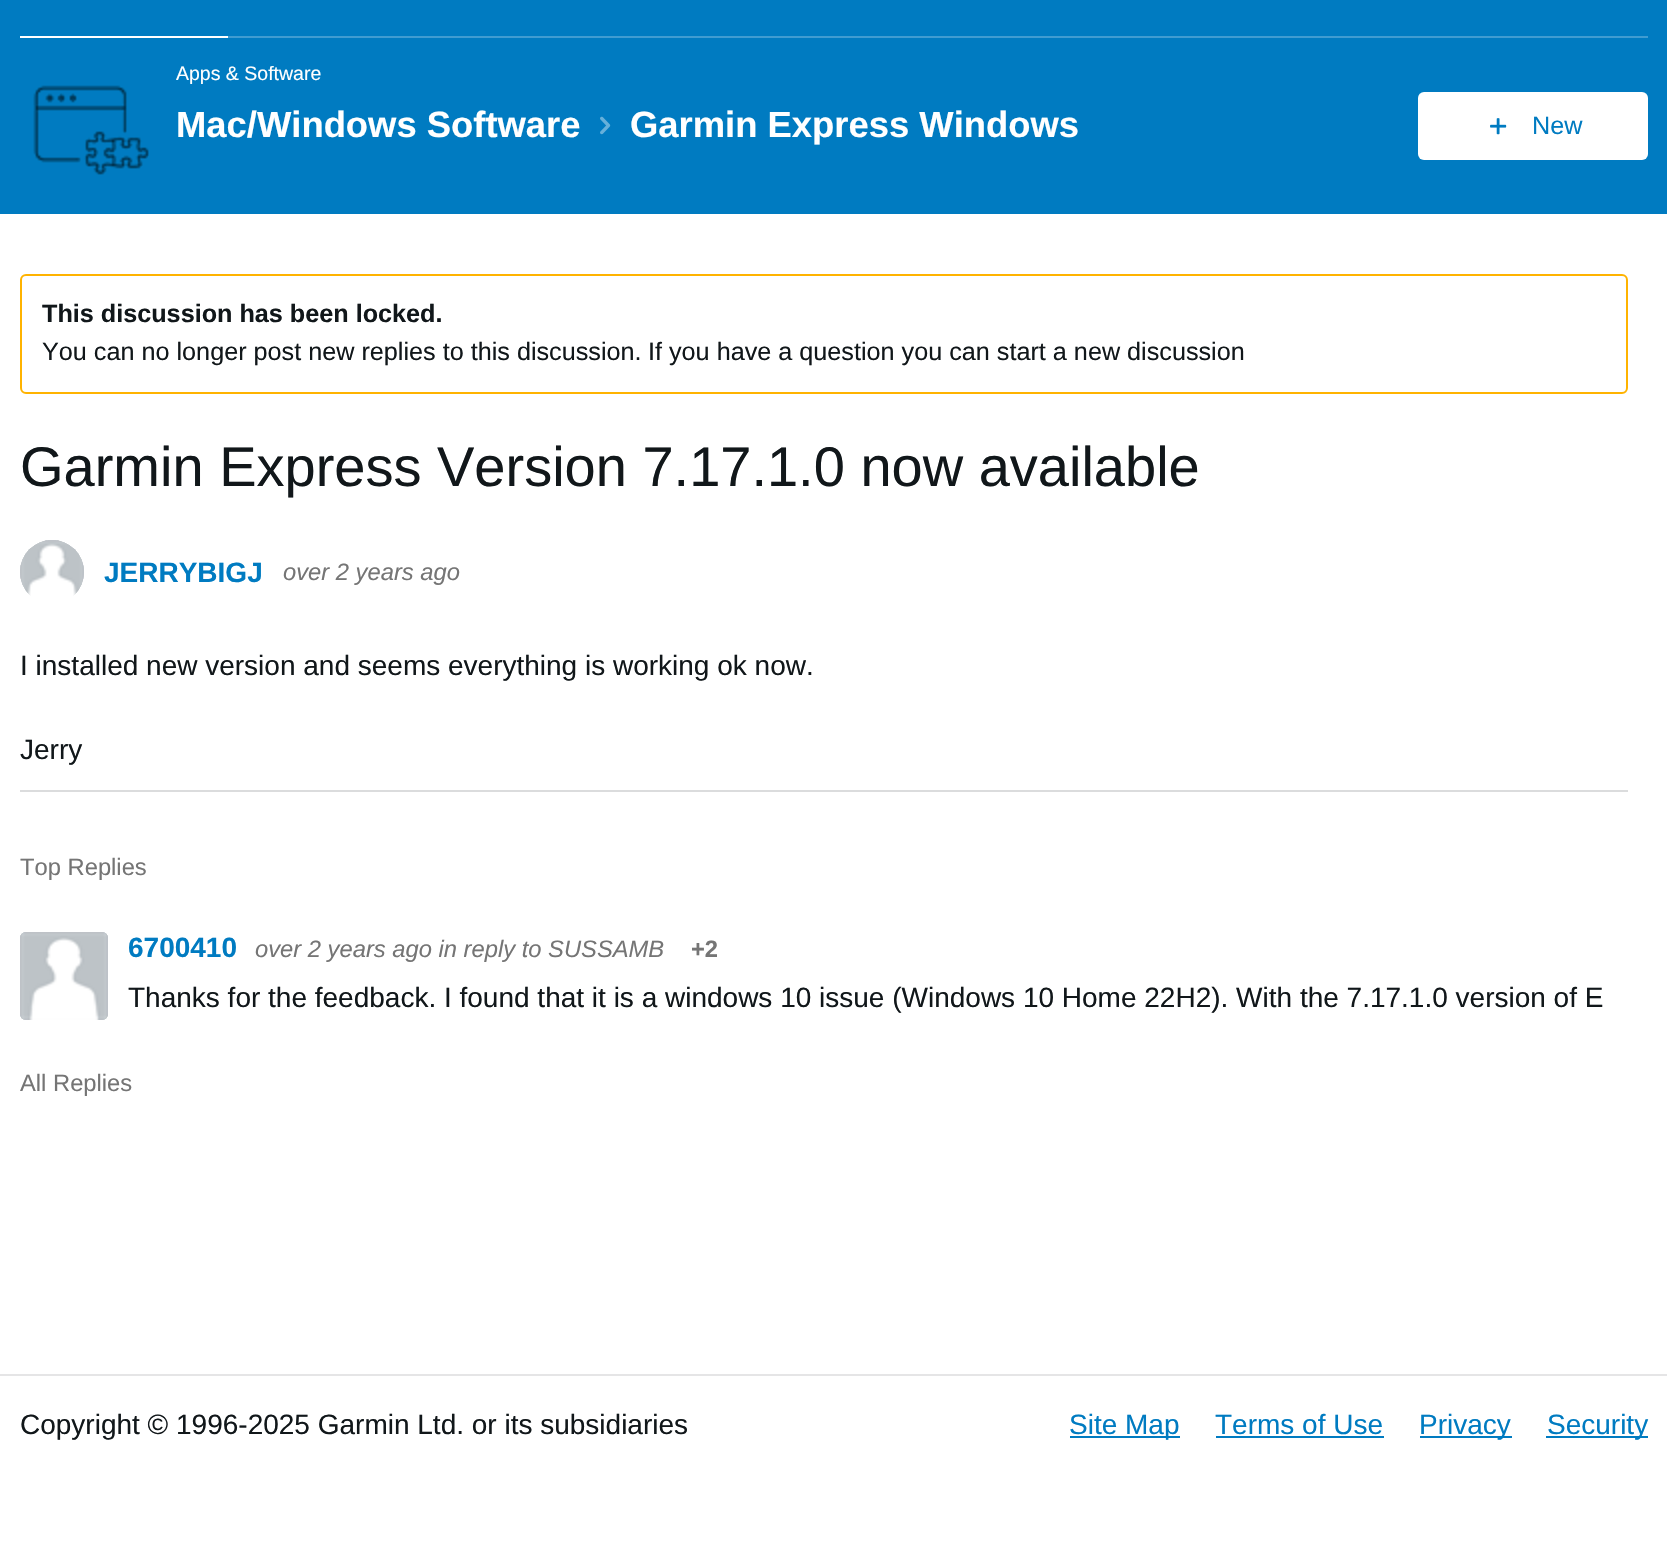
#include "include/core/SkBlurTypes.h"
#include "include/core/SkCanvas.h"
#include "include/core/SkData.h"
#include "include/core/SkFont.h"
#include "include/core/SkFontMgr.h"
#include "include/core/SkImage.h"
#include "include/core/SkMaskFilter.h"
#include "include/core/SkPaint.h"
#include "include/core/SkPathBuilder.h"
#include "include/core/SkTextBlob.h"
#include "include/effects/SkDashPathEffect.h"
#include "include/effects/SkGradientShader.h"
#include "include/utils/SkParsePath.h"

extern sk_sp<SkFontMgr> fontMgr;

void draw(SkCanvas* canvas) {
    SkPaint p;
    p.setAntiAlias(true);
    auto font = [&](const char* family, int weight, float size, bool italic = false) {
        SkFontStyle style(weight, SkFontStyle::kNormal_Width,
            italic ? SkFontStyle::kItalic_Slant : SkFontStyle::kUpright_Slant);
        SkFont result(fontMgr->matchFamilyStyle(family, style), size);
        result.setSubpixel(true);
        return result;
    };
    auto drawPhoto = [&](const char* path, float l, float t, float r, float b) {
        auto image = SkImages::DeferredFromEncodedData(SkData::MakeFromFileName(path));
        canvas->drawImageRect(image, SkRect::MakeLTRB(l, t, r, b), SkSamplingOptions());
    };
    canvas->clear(0xFFFFFFFF);
    {
        const struct { float l, t, r, b; SkColor color; } items[] = {
            {0, 0, 1667, 214, 0xFF007BC1},
            {20, 36, 228, 38, 0xFFFFFFFF},
            {228, 36, 1648, 38, 0xFF409CD1},
        };
        for (auto [l, t, r, b, color] : items) {
            p.setColor(color);
            canvas->drawRect(SkRect::MakeLTRB(l, t, r, b), p);
        }
    }
    drawPhoto("media/1.png", 33, 85, 149, 175);
    drawPhoto("media/2.png", 33, 85, 149, 175);
    auto font1 = font("Liberation Sans", 400, 19.5f);
    p.setColor(0xFFFFFFFF);
    canvas->drawString("Apps & Software", 176, 80, font1, p);
    auto font2 = font("Liberation Sans", 700, 36.4f);
    canvas->drawString("Mac/Windows Software", 176, 137, font2, p);
    drawPhoto("media/3.png", 600, 116, 611, 135);
    canvas->drawString("Garmin Express Windows", 630, 137, font2, p);
    canvas->drawRoundRect(SkRect::MakeLTRB(1418, 92, 1648, 160), 6, 6, p);
    drawPhoto("media/4.png", 1490, 118, 1507, 135);
    auto font3 = font("Liberation Sans", 400, 25.2f);
    p.setColor(0xFF007BC1);
    canvas->drawString("New", 1532, 134, font3, p);
    p.setStyle(SkPaint::kStroke_Style);
    p.setStrokeWidth(2);
    p.setColor(0xFFFFB300);
    canvas->drawRoundRect(SkRect::MakeLTRB(21, 275, 1627, 393), 5, 5, p);
    auto font4 = font("Liberation Sans", 700, 25.2f);
    p.setStyle(SkPaint::kFill_Style);
    p.setColor(0xFF11171A);
    canvas->drawString("This discussion has been locked.", 42, 322, font4, p);
    canvas->drawString("You can no longer post new replies to this discussion.", 42, 360, font3, p);
    canvas->drawString("If you have a question you can start a new discussion", 648, 360, font3, p);
    auto font5 = font("Liberation Sans", 400, 56);
    canvas->drawString("Garmin Express Version 7.17.1.0 now available", 20, 486, font5, p);
    drawPhoto("media/5.png", 20, 540, 84, 596);
    drawPhoto("media/6.png", 20, 540, 84, 593);
    auto font6 = font("Liberation Sans", 700, 28);
    p.setColor(0xFF007BC1);
    canvas->drawString("JERRYBIGJ", 104, 582, font6, p);
    auto font7 = font("Liberation Sans", 400, 23.75f, true);
    p.setColor(0xFF757575);
    canvas->drawString("over 2 years ago", 283, 580, font7, p);
    p.setColor(0xFFDBDCDD);
    canvas->drawRect(SkRect::MakeLTRB(20, 790, 1628, 792), p);
    auto font8 = font("Liberation Sans", 400, 28);
    p.setColor(0xFF11171A);
    canvas->drawString("I installed new version and seems everything is working ok now.", 20, 675, font8, p);
    canvas->drawString("Jerry", 20, 759, font8, p);
    auto font9 = font("Liberation Sans", 400, 23.75f);
    p.setColor(0xFF757575);
    canvas->drawString("Top Replies", 20, 875, font9, p);
    drawPhoto("media/7.png", 20, 932, 108, 1020);
    drawPhoto("media/8.png", 20, 932, 108, 1020);
    p.setColor(0xFF007BC1);
    canvas->drawString("6700410", 128, 957, font6, p);
    p.setColor(0xFF757575);
    canvas->drawString("over 2 years ago in reply to SUSSAMB", 255, 957, font7, p);
    auto font10 = font("Liberation Sans", 700, 23.75f);
    canvas->drawString("+2", 691, 957, font10, p);
    p.setColor(0xFF11171A);
    canvas->drawString("Thanks for the feedback. I found that it is a windows 10 issue (Windows 10 Home 22H2). With the 7.17.1.0 version of E", 128, 1007, font8, p);
    p.setColor(0xFF757575);
    canvas->drawString("All Replies", 20, 1091, font9, p);
    p.setColor(0xFFE5E5E6);
    canvas->drawRect(SkRect::MakeLTRB(0, 1374, 1667, 1376), p);
    p.setColor(0xFF11171A);
    canvas->drawString("Copyright © 1996-2025 Garmin Ltd. or its subsidiaries", 20, 1434, font8, p);
    p.setColor(0xFF007BC1);
    canvas->drawRect(SkRect::MakeLTRB(1070, 1436, 1180, 1438), p);
    canvas->drawString("Site Map", 1069, 1434, font8, p);
    canvas->drawString("Terms of Use", 1215, 1434, font8, p);
    canvas->drawRect(SkRect::MakeLTRB(1216, 1436, 1384, 1438), p);
    canvas->drawRect(SkRect::MakeLTRB(1420, 1436, 1512, 1438), p);
    canvas->drawString("Privacy", 1419, 1434, font8, p);
    canvas->drawRect(SkRect::MakeLTRB(1546, 1436, 1648, 1438), p);
    canvas->drawString("Security", 1547, 1434, font8, p);
}
